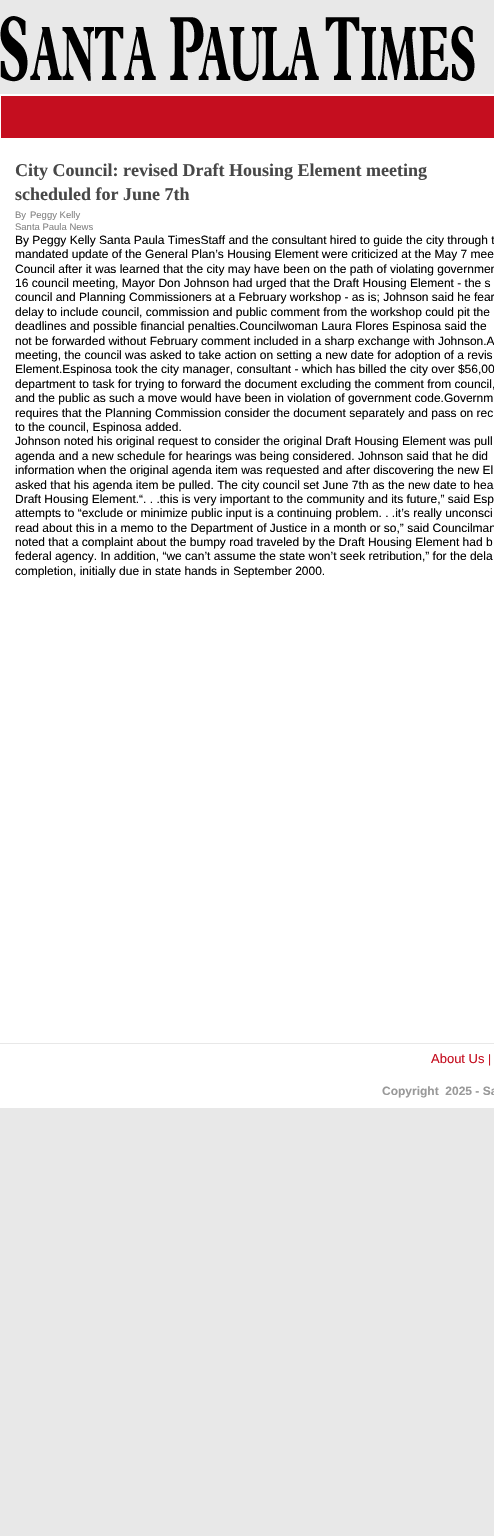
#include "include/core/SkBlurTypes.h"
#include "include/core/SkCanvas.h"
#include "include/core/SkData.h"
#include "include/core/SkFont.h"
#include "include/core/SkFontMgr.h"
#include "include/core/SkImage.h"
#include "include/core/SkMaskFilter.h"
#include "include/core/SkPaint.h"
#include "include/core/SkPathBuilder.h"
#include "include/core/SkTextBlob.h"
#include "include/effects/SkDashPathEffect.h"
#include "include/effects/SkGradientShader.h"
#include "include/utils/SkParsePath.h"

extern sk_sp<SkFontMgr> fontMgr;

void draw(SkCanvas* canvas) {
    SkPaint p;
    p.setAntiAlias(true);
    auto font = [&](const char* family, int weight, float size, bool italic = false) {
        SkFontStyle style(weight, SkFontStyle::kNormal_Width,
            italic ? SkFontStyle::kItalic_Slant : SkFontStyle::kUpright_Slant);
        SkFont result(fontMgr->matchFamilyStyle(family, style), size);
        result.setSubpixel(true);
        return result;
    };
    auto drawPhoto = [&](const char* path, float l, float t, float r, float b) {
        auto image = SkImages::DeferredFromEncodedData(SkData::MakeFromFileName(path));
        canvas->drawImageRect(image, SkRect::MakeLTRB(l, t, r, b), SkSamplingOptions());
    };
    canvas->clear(0xFFE8E8E8);
    drawPhoto("media/1.png", 0, 16, 475, 82);
    p.setColor(0xFFFFFFFF);
    canvas->drawRect(SkRect::MakeLTRB(0, 94, 494, 1108), p);
    p.setColor(0xFFC50E1F);
    canvas->drawRect(SkRect::MakeLTRB(1, 96, 494, 138), p);
    auto font1 = font("Liberation Serif", 700, 18);
    p.setColor(0xFF484848);
    canvas->drawString("City Council: revised Draft Housing Element meeting", 15, 176, font1, p);
    canvas->drawString("scheduled for June 7th", 15, 200, font1, p);
    auto font2 = font("Liberation Sans", 400, 9.5f);
    p.setColor(0xFF858585);
    {
        const struct { const char* s; float x, y; } items[] = {
            {"By", 15, 218},
            {"Peggy Kelly", 30, 218},
            {"Santa Paula News", 15, 230},
        };
        for (auto [s, x, y] : items) {
            canvas->drawString(s, x, y, font2, p);
        }
    }
    auto font3 = font("Liberation Sans", 400, 12);
    p.setColor(0xFF000000);
    {
        const struct { const char* s; float x, y; } items[] = {
            {"By Peggy Kelly Santa Paula TimesStaff and the consultant hired to guide the city through t", 15, 244},
            {"mandated update of the General Plan’s Housing Element were criticized at the May 7 mee", 15, 258},
            {"Council after it was learned that the city may have been on the path of violating governmen", 15, 273},
            {"16 council meeting, Mayor Don Johnson had urged that the Draft Housing Element - the s", 15, 287},
            {"council and Planning Commissioners at a February workshop - as is; Johnson said he fear", 15, 301},
            {"delay to include council, commission and public comment from the workshop could pit the", 15, 316},
            {"deadlines and possible financial penalties.Councilwoman Laura Flores Espinosa said the", 15, 330},
            {"not be forwarded without February comment included in a sharp exchange with Johnson.A", 15, 345},
            {"meeting, the council was asked to take action on setting a new date for adoption of a revis", 15, 359},
            {"Element.Espinosa took the city manager, consultant - which has billed the city over $56,00", 15, 373},
            {"department to task for trying to forward the document excluding the comment from council,", 15, 388},
            {"and the public as such a move would have been in violation of government code.Governm", 15, 402},
            {"requires that the Planning Commission consider the document separately and pass on rec", 15, 417},
            {"to the council, Espinosa added.", 15, 431},
            {"Johnson noted his original request to consider the original Draft Housing Element was pull", 15, 445},
            {"agenda and a new schedule for hearings was being considered. Johnson said that he did", 15, 460},
            {"information when the original agenda item was requested and after discovering the new El", 15, 474},
            {"asked that his agenda item be pulled. The city council set June 7th as the new date to hea", 15, 489},
            {"Draft Housing Element.“. . .this is very important to the community and its future,” said Esp", 15, 503},
            {"attempts to “exclude or minimize public input is a continuing problem. . .it’s really unconsci", 15, 517},
            {"read about this in a memo to the Department of Justice in a month or so,” said Councilman", 15, 532},
            {"noted that a complaint about the bumpy road traveled by the Draft Housing Element had b", 15, 546},
            {"federal agency. In addition, “we can’t assume the state won’t seek retribution,” for the dela", 15, 560},
            {"completion, initially due in state hands in September 2000.", 15, 575},
        };
        for (auto [s, x, y] : items) {
            canvas->drawString(s, x, y, font3, p);
        }
    }
    p.setColor(0xFFE8E8E8);
    canvas->drawRect(SkRect::MakeLTRB(0, 1043, 494, 1044), p);
    auto font4 = font("Liberation Sans", 400, 13);
    p.setColor(0xFFC50E1F);
    canvas->drawString("About Us", 431, 1063, font4, p);
    canvas->drawString("|", 488, 1063, font3, p);
    auto font5 = font("Liberation Sans", 700, 12);
    p.setColor(0xFF999999);
    canvas->drawString("Copyright  2025 - Sa", 382, 1095, font5, p);
}
